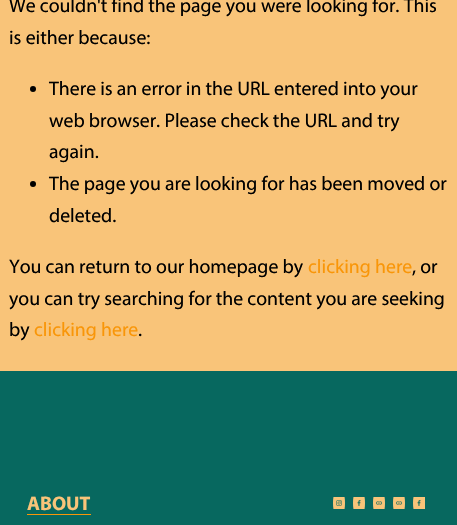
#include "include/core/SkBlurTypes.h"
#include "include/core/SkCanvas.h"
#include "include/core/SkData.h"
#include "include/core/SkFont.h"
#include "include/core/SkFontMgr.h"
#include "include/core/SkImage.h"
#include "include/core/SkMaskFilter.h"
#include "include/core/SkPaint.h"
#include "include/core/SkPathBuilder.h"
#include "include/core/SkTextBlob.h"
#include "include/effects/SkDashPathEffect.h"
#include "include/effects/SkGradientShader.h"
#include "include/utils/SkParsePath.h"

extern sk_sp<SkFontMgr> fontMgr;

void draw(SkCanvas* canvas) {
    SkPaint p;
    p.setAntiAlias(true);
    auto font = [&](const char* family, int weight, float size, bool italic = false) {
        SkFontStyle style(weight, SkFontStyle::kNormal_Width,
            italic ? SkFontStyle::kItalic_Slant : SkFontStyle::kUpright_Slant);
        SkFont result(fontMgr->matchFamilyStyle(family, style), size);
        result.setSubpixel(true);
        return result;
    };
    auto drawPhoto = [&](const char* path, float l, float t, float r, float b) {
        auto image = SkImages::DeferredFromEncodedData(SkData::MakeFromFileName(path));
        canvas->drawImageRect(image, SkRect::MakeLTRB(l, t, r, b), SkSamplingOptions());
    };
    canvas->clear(0xFFF9C479);
    auto font1 = font("Myriad", 400, 19.75f);
    p.setColor(0xFF000000);
    canvas->drawString("We couldn't find the page you were looking for. This", 9, 12, font1, p);
    canvas->drawString("is either because:", 9, 44, font1, p);
    canvas->drawCircle(33, 89, 3, p);
    {
        const struct { const char* s; float x, y; } items[] = {
            {"There is an error in the URL entered into your", 49, 95},
            {"web browser. Please check the URL and try", 49, 127},
            {"again.", 49, 158},
        };
        for (auto [s, x, y] : items) {
            canvas->drawString(s, x, y, font1, p);
        }
    }
    canvas->drawCircle(33, 184, 3, p);
    {
        const struct { const char* s; float x, y; } items[] = {
            {"The page you are looking for has been moved or", 49, 190},
            {"deleted.", 49, 222},
            {"You can return to our homepage by", 9, 273},
        };
        for (auto [s, x, y] : items) {
            canvas->drawString(s, x, y, font1, p);
        }
    }
    p.setColor(0xFFF99608);
    canvas->drawString("clicking here", 308, 273, font1, p);
    p.setColor(0xFF000000);
    {
        const struct { const char* s; float x, y; } items[] = {
            {", or", 412, 273},
            {"you can try searching for the content you are seeking", 9, 305},
            {"by", 9, 336},
        };
        for (auto [s, x, y] : items) {
            canvas->drawString(s, x, y, font1, p);
        }
    }
    p.setColor(0xFFF99608);
    canvas->drawString("clicking here", 34, 336, font1, p);
    p.setColor(0xFF000000);
    canvas->drawString(".", 138, 336, font1, p);
    p.setColor(0xFF07685F);
    canvas->drawRect(SkRect::MakeLTRB(0, 371, 457, 525), p);
    auto font2 = font("Myriad", 700, 19.75f);
    p.setColor(0xFFF9C479);
    canvas->drawString("ABOUT", 27, 510, font2, p);
    p.setColor(0xFFF99608);
    canvas->drawRect(SkRect::MakeLTRB(27, 514, 91, 515), p);
    drawPhoto("media/1.png", 333, 497, 345, 509);
    drawPhoto("media/2.png", 353, 497, 365, 509);
    drawPhoto("media/3.png", 373, 497, 385, 509);
    drawPhoto("media/3.png", 393, 497, 405, 509);
    drawPhoto("media/4.png", 413, 497, 425, 509);
}
